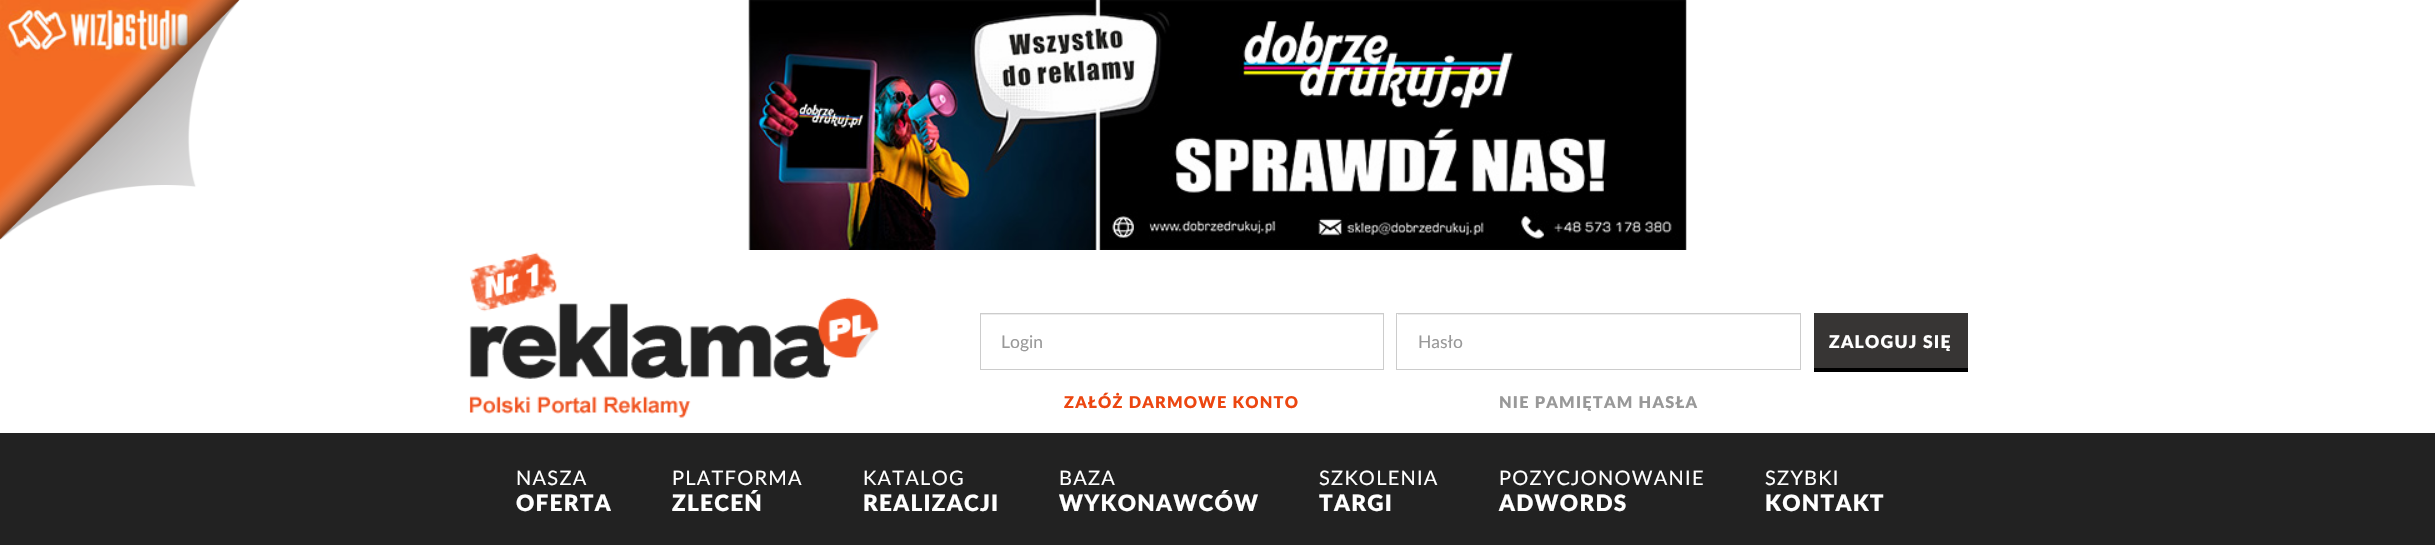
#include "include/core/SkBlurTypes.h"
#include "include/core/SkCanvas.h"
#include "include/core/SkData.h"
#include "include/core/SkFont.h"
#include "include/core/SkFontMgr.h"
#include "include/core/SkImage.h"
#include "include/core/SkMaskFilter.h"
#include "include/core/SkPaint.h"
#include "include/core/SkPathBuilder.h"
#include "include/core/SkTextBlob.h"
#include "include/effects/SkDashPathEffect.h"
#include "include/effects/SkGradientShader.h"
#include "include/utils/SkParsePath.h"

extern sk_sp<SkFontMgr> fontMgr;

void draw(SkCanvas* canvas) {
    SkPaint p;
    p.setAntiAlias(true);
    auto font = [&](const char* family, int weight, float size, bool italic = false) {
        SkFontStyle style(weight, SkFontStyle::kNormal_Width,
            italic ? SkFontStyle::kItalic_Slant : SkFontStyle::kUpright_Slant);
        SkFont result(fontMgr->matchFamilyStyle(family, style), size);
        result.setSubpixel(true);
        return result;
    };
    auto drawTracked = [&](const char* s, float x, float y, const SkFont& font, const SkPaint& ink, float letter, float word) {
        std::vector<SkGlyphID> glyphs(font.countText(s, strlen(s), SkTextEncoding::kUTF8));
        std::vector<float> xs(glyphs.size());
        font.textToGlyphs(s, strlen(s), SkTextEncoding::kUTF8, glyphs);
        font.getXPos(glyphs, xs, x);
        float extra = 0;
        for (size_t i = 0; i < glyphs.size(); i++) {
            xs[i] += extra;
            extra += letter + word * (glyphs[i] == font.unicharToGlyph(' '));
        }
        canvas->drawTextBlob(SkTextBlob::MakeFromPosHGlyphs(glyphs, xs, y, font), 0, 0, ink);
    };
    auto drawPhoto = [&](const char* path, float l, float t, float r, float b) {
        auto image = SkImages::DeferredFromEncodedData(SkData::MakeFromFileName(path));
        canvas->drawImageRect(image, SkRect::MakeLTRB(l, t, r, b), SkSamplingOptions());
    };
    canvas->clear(0xFFFFFFFF);
    drawPhoto("media/1.png", 0, 0, 240, 240);
    drawPhoto("media/2.png", 0, 0, 250, 250);
    drawPhoto("media/3.png", 748, 0, 1687, 250);
    drawPhoto("media/4.png", 469, 252, 879, 418);
    p.setColor(0xFFECECEC);
    canvas->drawRect(SkRect::MakeLTRB(981, 314, 1383, 315), p);
    p.setStyle(SkPaint::kStroke_Style);
    p.setStrokeWidth(1);
    p.setColor(0xFFCCCCCC);
    canvas->drawRect(SkRect::MakeLTRB(980.5f, 313.5f, 1383.5f, 369.5f), p);
    auto font1 = font("Lato", 400, 17.5f);
    p.setStyle(SkPaint::kFill_Style);
    p.setColor(0xFF999999);
    canvas->drawString("Login", 1001, 348, font1, p);
    auto font2 = font("Lato", 900, 16.25f);
    p.setColor(0xFFEC4610);
    drawTracked("ZAŁÓŻ DARMOWE KONTO", 1064, 408, font2, p, 1.25f, 0);
    p.setColor(0xFFECECEC);
    canvas->drawRect(SkRect::MakeLTRB(1398, 314, 1800, 315), p);
    p.setStyle(SkPaint::kStroke_Style);
    p.setColor(0xFFCCCCCC);
    canvas->drawRect(SkRect::MakeLTRB(1396.5f, 313.5f, 1800.5f, 369.5f), p);
    p.setStyle(SkPaint::kFill_Style);
    p.setColor(0xFF999999);
    canvas->drawString("Hasło", 1418, 348, font1, p);
    drawTracked("NIE PAMIĘTAM HASŁA", 1499, 408, font2, p, 1.25f, 0);
    p.setColor(0xFF373534);
    canvas->drawRect(SkRect::MakeLTRB(1814, 313, 1968, 368), p);
    p.setColor(0xFF000000);
    canvas->drawRect(SkRect::MakeLTRB(1814, 368, 1968, 372), p);
    auto font3 = font("Lato", 900, 17.5f);
    p.setColor(0xFFFFFFFF);
    drawTracked("ZALOGUJ SIĘ", 1829, 348, font3, p, 1.25f, 0);
    p.setColor(0xFF222222);
    canvas->drawRect(SkRect::MakeLTRB(0, 433, 2435, 545), p);
    auto font4 = font("Lato", 400, 20);
    p.setColor(0xFFFFFFFF);
    drawTracked("NASZA", 516, 485, font4, p, 1.25f, 0);
    auto font5 = font("Lato", 900, 22.5f);
    drawTracked("OFERTA", 516, 511, font5, p, 1.25f, 0);
    drawTracked("PLATFORMA", 672, 485, font4, p, 1.25f, 0);
    drawTracked("ZLECEŃ", 672, 511, font5, p, 1.25f, 0);
    drawTracked("KATALOG", 863, 485, font4, p, 1.25f, 0);
    drawTracked("REALIZACJI", 863, 511, font5, p, 1.25f, 0);
    drawTracked("BAZA", 1059, 485, font4, p, 1.25f, 0);
    drawTracked("WYKONAWCÓW", 1059, 511, font5, p, 1.25f, 0);
    drawTracked("SZKOLENIA", 1319, 485, font4, p, 1.25f, 0);
    drawTracked("TARGI", 1319, 511, font5, p, 1.25f, 0);
    drawTracked("POZYCJONOWANIE", 1499, 485, font4, p, 1.25f, 0);
    drawTracked("ADWORDS", 1499, 511, font5, p, 1.25f, 0);
    drawTracked("SZYBKI", 1765, 485, font4, p, 1.25f, 0);
    drawTracked("KONTAKT", 1765, 511, font5, p, 1.25f, 0);
}
